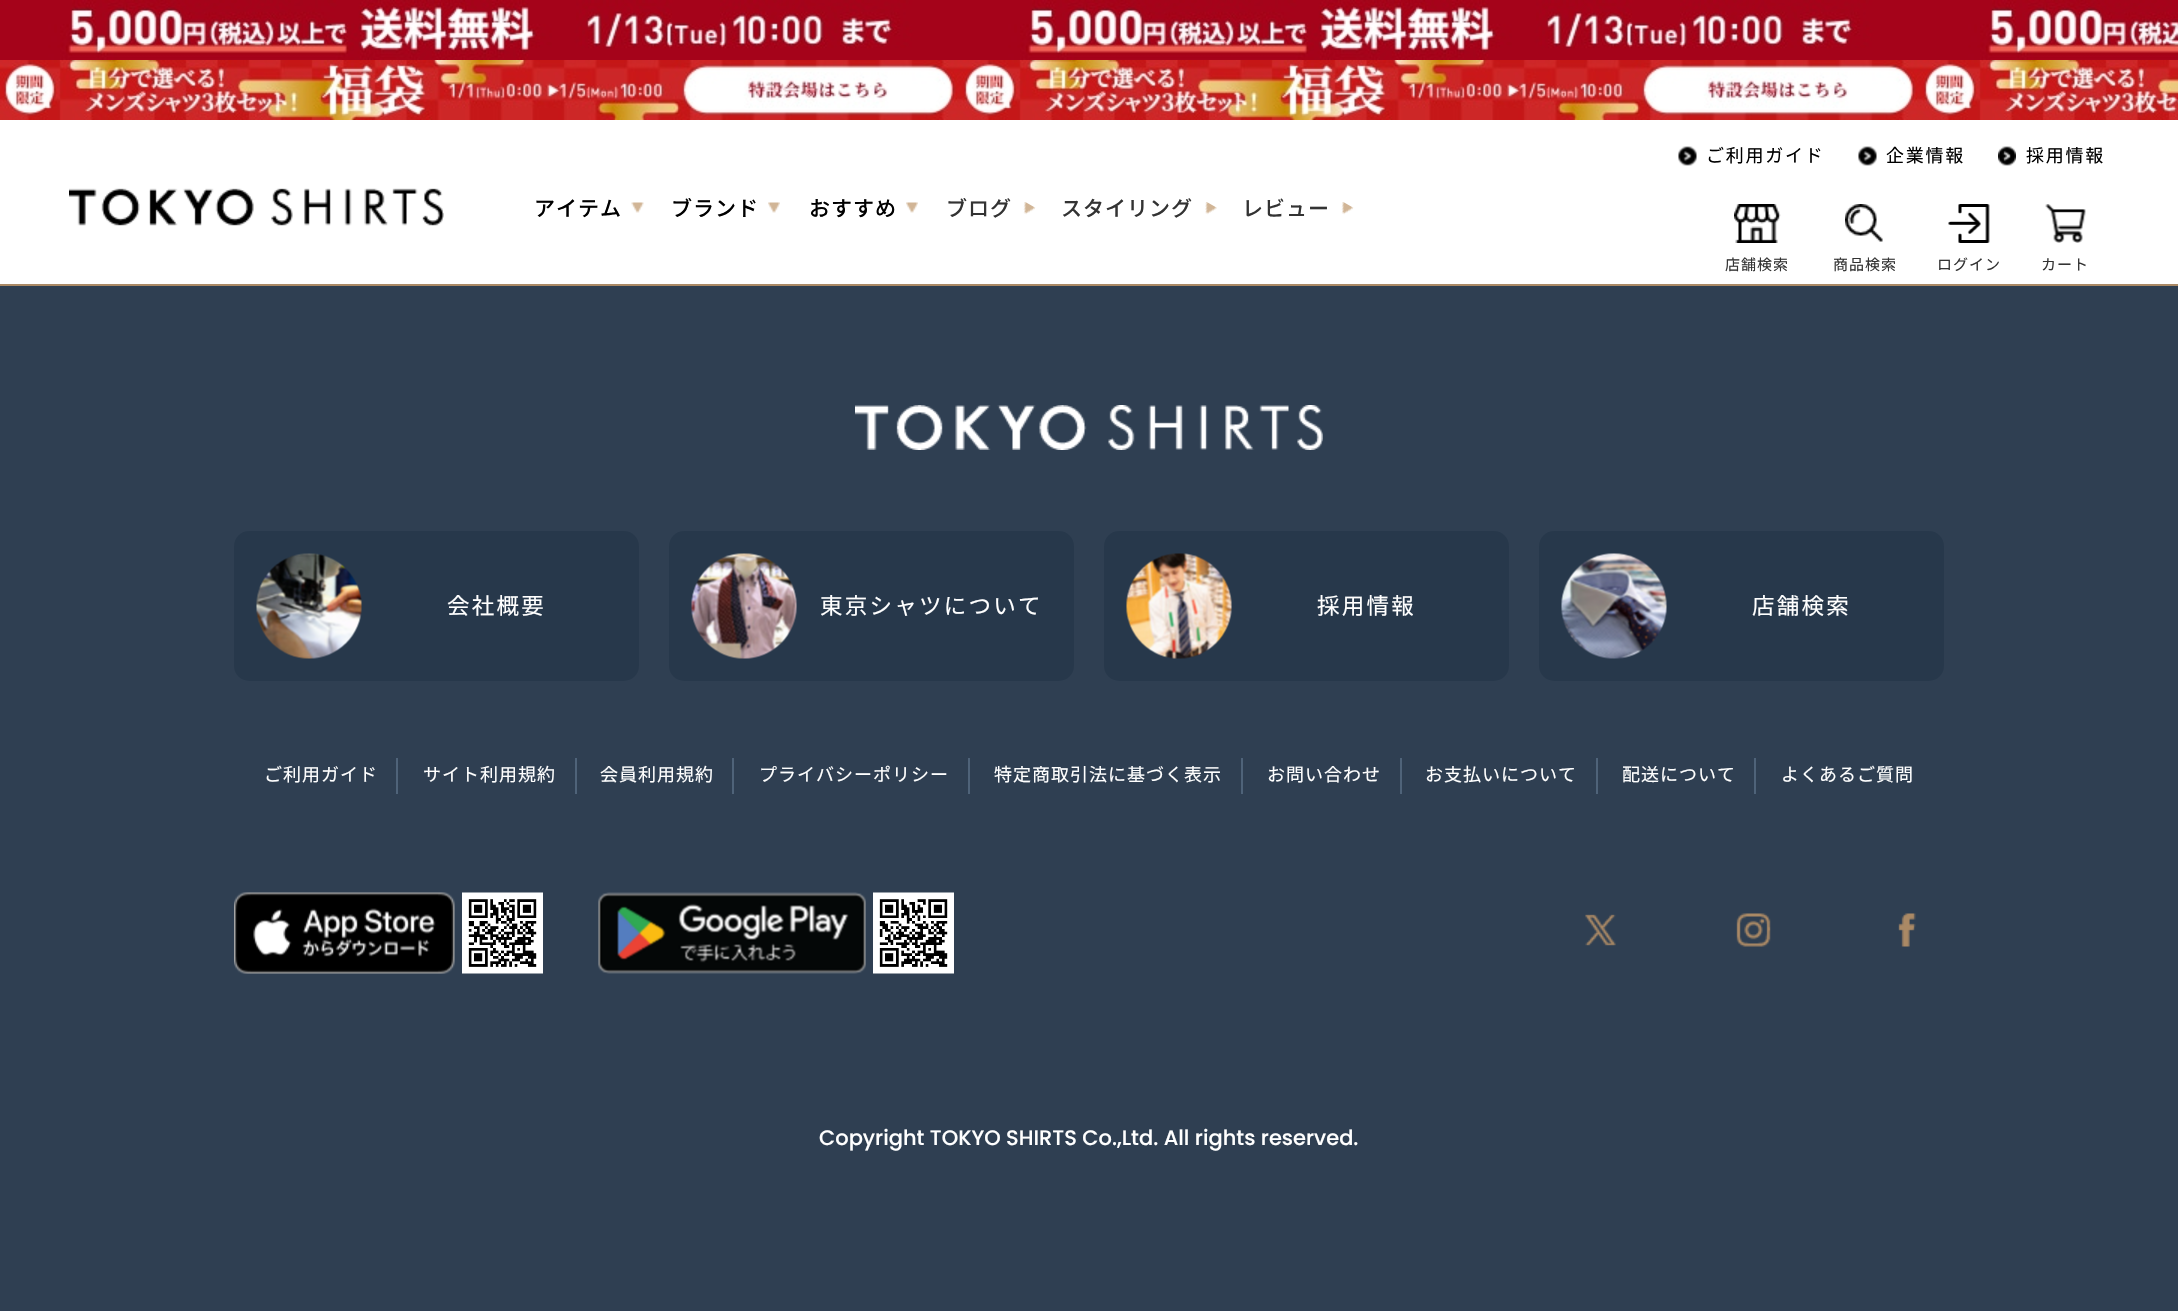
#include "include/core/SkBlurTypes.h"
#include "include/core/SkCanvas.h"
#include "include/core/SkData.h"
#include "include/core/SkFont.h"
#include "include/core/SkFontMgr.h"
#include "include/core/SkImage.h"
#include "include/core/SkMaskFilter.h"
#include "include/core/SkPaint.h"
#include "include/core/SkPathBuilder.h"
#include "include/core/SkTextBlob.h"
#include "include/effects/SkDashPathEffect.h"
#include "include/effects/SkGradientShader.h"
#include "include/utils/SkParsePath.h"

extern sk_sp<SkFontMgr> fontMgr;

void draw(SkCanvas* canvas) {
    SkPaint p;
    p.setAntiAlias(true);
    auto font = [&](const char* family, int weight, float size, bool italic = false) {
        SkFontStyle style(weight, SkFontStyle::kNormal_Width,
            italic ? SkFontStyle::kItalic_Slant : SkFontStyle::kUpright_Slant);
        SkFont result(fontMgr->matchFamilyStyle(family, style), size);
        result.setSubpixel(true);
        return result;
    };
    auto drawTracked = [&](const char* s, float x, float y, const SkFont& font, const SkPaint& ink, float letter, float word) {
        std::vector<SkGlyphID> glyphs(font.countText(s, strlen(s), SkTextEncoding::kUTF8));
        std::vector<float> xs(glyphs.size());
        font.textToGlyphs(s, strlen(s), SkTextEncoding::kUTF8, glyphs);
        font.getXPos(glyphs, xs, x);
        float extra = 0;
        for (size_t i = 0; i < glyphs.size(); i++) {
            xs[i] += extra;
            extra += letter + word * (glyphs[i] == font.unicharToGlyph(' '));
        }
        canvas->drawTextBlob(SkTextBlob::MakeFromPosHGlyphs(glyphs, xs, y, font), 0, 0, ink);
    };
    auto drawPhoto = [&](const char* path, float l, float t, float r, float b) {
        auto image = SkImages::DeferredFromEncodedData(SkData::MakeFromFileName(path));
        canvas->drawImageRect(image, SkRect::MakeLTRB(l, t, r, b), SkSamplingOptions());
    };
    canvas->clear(0xFF2F3F52);
    p.setColor(0xFFFFFFFF);
    canvas->drawRect(SkRect::MakeLTRB(0, 120, 2178, 284), p);
    p.setColor(0xFFAA8965);
    canvas->drawRect(SkRect::MakeLTRB(0, 284, 2178, 286), p);
    drawPhoto("media/1.png", 0, 0, 2178, 60);
    drawPhoto("media/2.png", 0, 60, 2178, 120);
    drawPhoto("media/3.png", 69, 188, 444, 226);
    auto font1 = font("Noto Sans JP", 500, 21);
    p.setColor(0xFF000000);
    drawTracked("アイテム", 534, 216, font1, p, 1, 0);
    drawPhoto("media/4.png", 631, 202, 644, 213);
    drawTracked("ブランド", 671, 216, font1, p, 1, 0);
    drawPhoto("media/5.png", 768, 202, 780, 213);
    drawTracked("おすすめ", 809, 216, font1, p, 1, 0);
    drawPhoto("media/5.png", 906, 202, 918, 213);
    p.setColor(0xFF333333);
    drawTracked("ブログ", 946, 216, font1, p, 1, 0);
    drawPhoto("media/6.png", 1023, 202, 1036, 215);
    drawTracked("スタイリング", 1061, 216, font1, p, 1, 0);
    drawPhoto("media/7.png", 1205, 202, 1217, 215);
    drawTracked("レビュー", 1242, 216, font1, p, 1, 0);
    drawPhoto("media/6.png", 1341, 202, 1354, 215);
    drawPhoto("media/8.png", 1678, 146, 1697, 166);
    auto font2 = font("Noto Sans JP", 400, 18);
    p.setColor(0xFF000000);
    drawTracked("ご利用ガイド", 1706, 162, font2, p, 1.75f, 0);
    drawPhoto("media/8.png", 1858, 146, 1877, 166);
    drawTracked("企業情報", 1886, 162, font2, p, 1.75f, 0);
    drawPhoto("media/9.png", 1998, 146, 2016, 166);
    drawTracked("採用情報", 2026, 162, font2, p, 1.75f, 0);
    drawPhoto("media/10.png", 1734, 204, 1781, 243);
    auto font3 = font("Noto Sans JP", 400, 15);
    p.setColor(0xFF333333);
    drawTracked("店舗検索", 1725, 270, font3, p, 1, 0);
    drawPhoto("media/11.png", 1845, 204, 1883, 242);
    drawTracked("商品検索", 1833, 270, font3, p, 1, 0);
    drawPhoto("media/12.png", 1948, 204, 1990, 243);
    drawTracked("ログイン", 1937, 270, font3, p, 1, 0);
    drawPhoto("media/13.png", 2045, 204, 2086, 243);
    drawTracked("カート", 2041, 270, font3, p, 1, 0);
    drawPhoto("media/14.png", 855, 405, 1323, 450);
    p.setColor(0xFF27384B);
    canvas->drawRoundRect(SkRect::MakeLTRB(234, 531, 639, 681), 15, 15, p);
    drawPhoto("media/15.png", 256, 553, 362, 659);
    auto font4 = font("Noto Sans JP", 400, 22.5f);
    p.setColor(0xFFFFFFFF);
    drawTracked("会社概要", 447, 614, font4, p, 2.25f, 0);
    p.setColor(0xFF27384B);
    canvas->drawRoundRect(SkRect::MakeLTRB(669, 531, 1074, 681), 15, 15, p);
    drawPhoto("media/16.png", 691, 553, 797, 659);
    p.setColor(0xFFFFFFFF);
    drawTracked("東京シャツについて", 820, 614, font4, p, 2.25f, 0);
    p.setColor(0xFF27384B);
    canvas->drawRoundRect(SkRect::MakeLTRB(1104, 531, 1509, 681), 15, 15, p);
    drawPhoto("media/17.png", 1126, 553, 1232, 659);
    p.setColor(0xFFFFFFFF);
    drawTracked("採用情報", 1317, 614, font4, p, 2.25f, 0);
    p.setColor(0xFF27384B);
    canvas->drawRoundRect(SkRect::MakeLTRB(1539, 531, 1944, 681), 15, 15, p);
    drawPhoto("media/18.png", 1561, 553, 1667, 659);
    p.setColor(0xFFFFFFFF);
    drawTracked("店舗検索", 1752, 614, font4, p, 2.25f, 0);
    drawTracked("ご利用ガイド", 264, 781, font2, p, 1, 0);
    p.setColor(0xFF4F6379);
    canvas->drawRect(SkRect::MakeLTRB(396, 758, 398, 794), p);
    p.setColor(0xFFFFFFFF);
    drawTracked("サイト利用規約", 423, 781, font2, p, 1, 0);
    p.setColor(0xFF4F6379);
    canvas->drawRect(SkRect::MakeLTRB(575, 758, 577, 794), p);
    p.setColor(0xFFFFFFFF);
    drawTracked("会員利用規約", 600, 781, font2, p, 1, 0);
    p.setColor(0xFF4F6379);
    canvas->drawRect(SkRect::MakeLTRB(732, 758, 734, 794), p);
    p.setColor(0xFFFFFFFF);
    drawTracked("プライバシーポリシー", 759, 781, font2, p, 1, 0);
    p.setColor(0xFF4F6379);
    canvas->drawRect(SkRect::MakeLTRB(968, 758, 970, 794), p);
    p.setColor(0xFFFFFFFF);
    drawTracked("特定商取引法に基づく表示", 994, 781, font2, p, 1, 0);
    p.setColor(0xFF4F6379);
    canvas->drawRect(SkRect::MakeLTRB(1241, 758, 1243, 794), p);
    p.setColor(0xFFFFFFFF);
    drawTracked("お問い合わせ", 1267, 781, font2, p, 1, 0);
    p.setColor(0xFF4F6379);
    canvas->drawRect(SkRect::MakeLTRB(1400, 758, 1402, 794), p);
    p.setColor(0xFFFFFFFF);
    drawTracked("お支払いについて", 1425, 781, font2, p, 1, 0);
    p.setColor(0xFF4F6379);
    canvas->drawRect(SkRect::MakeLTRB(1596, 758, 1598, 794), p);
    p.setColor(0xFFFFFFFF);
    drawTracked("配送について", 1622, 781, font2, p, 1, 0);
    p.setColor(0xFF4F6379);
    canvas->drawRect(SkRect::MakeLTRB(1754, 758, 1756, 794), p);
    p.setColor(0xFFFFFFFF);
    drawTracked("よくあるご質問", 1781, 781, font2, p, 1, 0);
    drawPhoto("media/19.png", 234, 892, 455, 974);
    drawPhoto("media/20.png", 462, 892, 543, 974);
    drawPhoto("media/21.png", 598, 892, 866, 974);
    drawPhoto("media/22.png", 873, 892, 954, 974);
    drawPhoto("media/23.png", 1585, 914, 1616, 946);
    drawPhoto("media/24.png", 1736, 913, 1771, 947);
    drawPhoto("media/25.png", 1898, 913, 1916, 947);
    auto font5 = font("Poppins", 500, 21);
    canvas->drawString("Copyright TOKYO SHIRTS Co.,Ltd. All rights reserved.", 819, 1145, font5, p);
}
